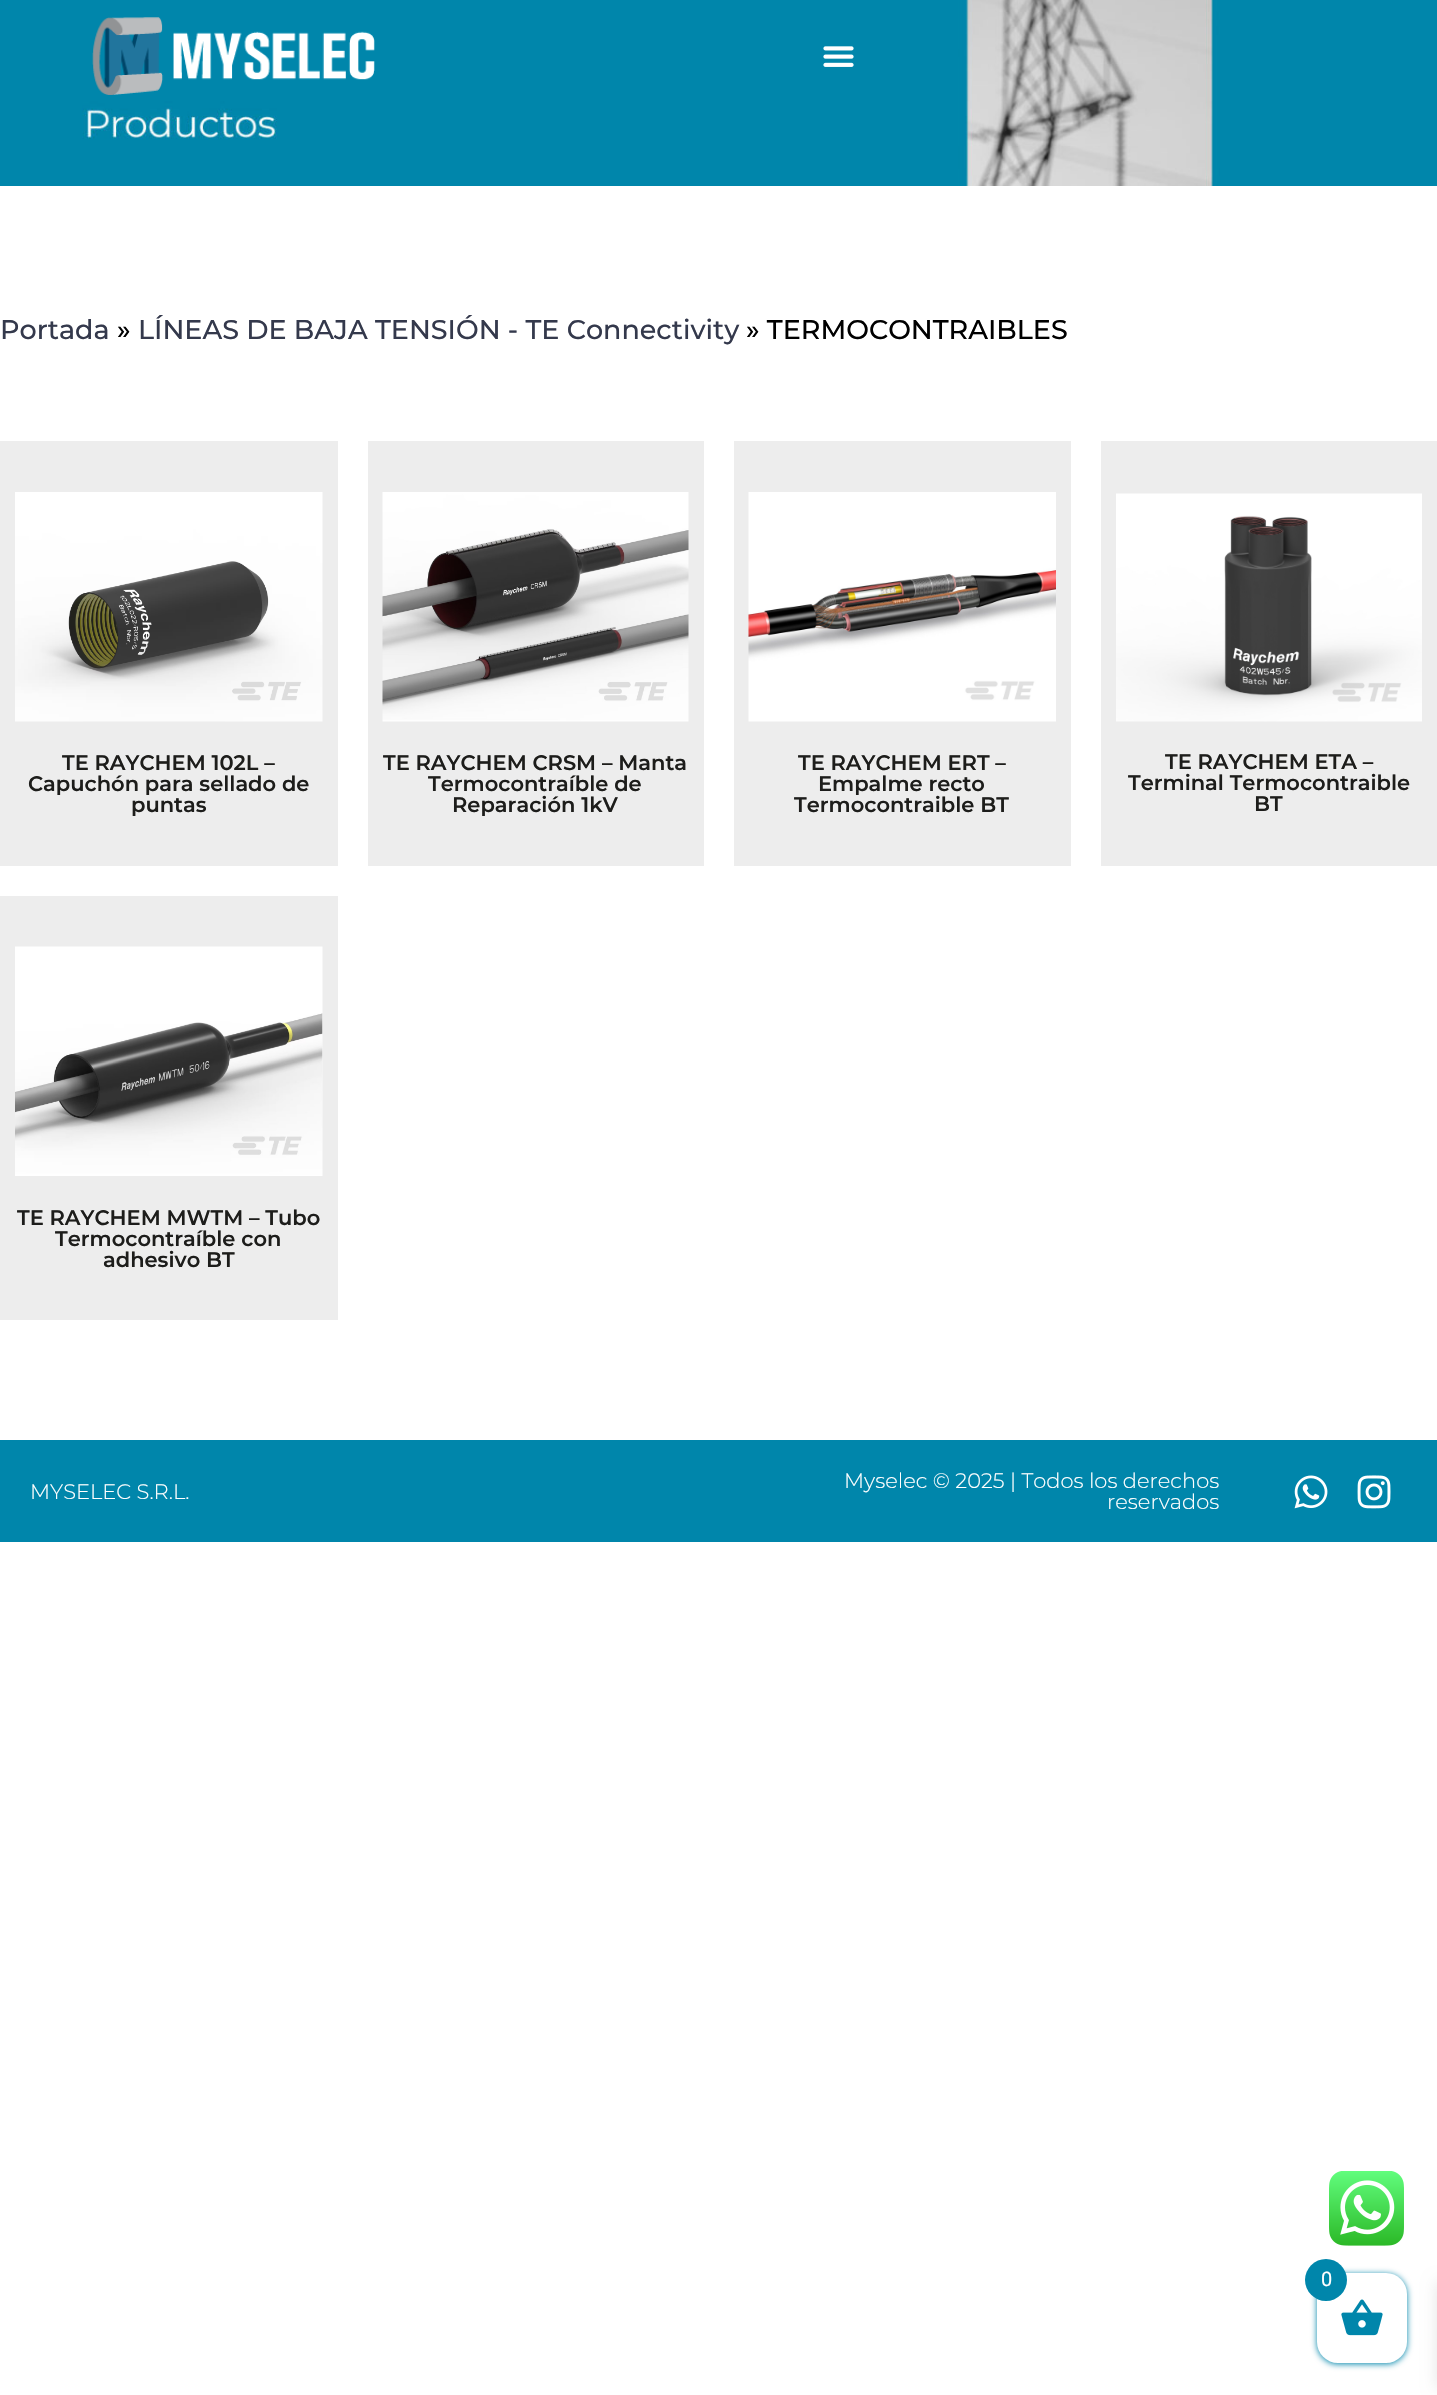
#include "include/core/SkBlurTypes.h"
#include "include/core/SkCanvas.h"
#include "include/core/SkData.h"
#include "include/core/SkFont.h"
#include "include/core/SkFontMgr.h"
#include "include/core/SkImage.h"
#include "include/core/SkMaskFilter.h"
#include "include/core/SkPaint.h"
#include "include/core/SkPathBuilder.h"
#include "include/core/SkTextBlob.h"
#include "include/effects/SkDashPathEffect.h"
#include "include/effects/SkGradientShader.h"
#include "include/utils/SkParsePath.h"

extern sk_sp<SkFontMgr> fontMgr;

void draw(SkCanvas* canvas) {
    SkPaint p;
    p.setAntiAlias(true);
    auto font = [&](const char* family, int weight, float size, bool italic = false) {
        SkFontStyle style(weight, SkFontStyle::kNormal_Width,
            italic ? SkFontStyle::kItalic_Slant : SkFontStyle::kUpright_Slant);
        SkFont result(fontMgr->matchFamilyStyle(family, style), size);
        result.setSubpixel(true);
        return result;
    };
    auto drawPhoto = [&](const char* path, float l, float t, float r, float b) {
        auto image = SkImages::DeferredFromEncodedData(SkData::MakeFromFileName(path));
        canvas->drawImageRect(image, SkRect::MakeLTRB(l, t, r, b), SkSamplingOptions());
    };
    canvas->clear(0xFFFFFFFF);
    drawPhoto("media/3.png", 0, 0, 1437, 186);
    drawPhoto("media/1.png", 92, 17, 375, 95);
    drawPhoto("media/2.png", 823, 46, 854, 67);
    auto font1 = font("Montserrat", 500, 27);
    p.setColor(0xFF34394C);
    canvas->drawString("Portada", 0, 339, font1, p);
    p.setColor(0xFF000000);
    canvas->drawString("»", 117, 339, font1, p);
    p.setColor(0xFF34394C);
    canvas->drawString("LÍNEAS DE BAJA TENSIÓN - TE Connectivity", 138, 339, font1, p);
    p.setColor(0xFF000000);
    canvas->drawString("» TERMOCONTRAIBLES", 746, 339, font1, p);
    p.setColor(0xFFEDEDED);
    canvas->drawRect(SkRect::MakeLTRB(0, 441, 338, 866), p);
    drawPhoto("media/4.png", 15, 492, 323, 722);
    auto font2 = font("Montserrat", 600, 21);
    p.setColor(0xFF1D1D1B);
    {
        const struct { const char* s; float x, y; } items[] = {
            {"TE RAYCHEM 102L –", 62, 770},
            {"Capuchón para sellado de", 28, 791},
            {"puntas", 131, 812},
        };
        for (auto [s, x, y] : items) {
            canvas->drawString(s, x, y, font2, p);
        }
    }
    p.setColor(0xFFEDEDED);
    canvas->drawRect(SkRect::MakeLTRB(368, 441, 704, 866), p);
    drawPhoto("media/5.png", 382, 492, 689, 722);
    p.setColor(0xFF1D1D1B);
    {
        const struct { const char* s; float x, y; } items[] = {
            {"TE RAYCHEM CRSM – Manta", 383, 770},
            {"Termocontraíble de", 428, 791},
            {"Reparación 1kV", 452, 812},
        };
        for (auto [s, x, y] : items) {
            canvas->drawString(s, x, y, font2, p);
        }
    }
    p.setColor(0xFFEDEDED);
    canvas->drawRect(SkRect::MakeLTRB(734, 441, 1071, 866), p);
    drawPhoto("media/6.png", 748, 492, 1056, 722);
    p.setColor(0xFF1D1D1B);
    {
        const struct { const char* s; float x, y; } items[] = {
            {"TE RAYCHEM ERT –", 798, 770},
            {"Empalme recto", 818, 791},
            {"Termocontraible BT", 794, 812},
        };
        for (auto [s, x, y] : items) {
            canvas->drawString(s, x, y, font2, p);
        }
    }
    p.setColor(0xFFEDEDED);
    canvas->drawRect(SkRect::MakeLTRB(1101, 441, 1437, 866), p);
    drawPhoto("media/7.png", 1116, 493, 1422, 722);
    p.setColor(0xFF1D1D1B);
    {
        const struct { const char* s; float x, y; } items[] = {
            {"TE RAYCHEM ETA –", 1165, 769},
            {"Terminal Termocontraible", 1128, 790},
            {"BT", 1254, 811},
        };
        for (auto [s, x, y] : items) {
            canvas->drawString(s, x, y, font2, p);
        }
    }
    p.setColor(0xFFEDEDED);
    canvas->drawRect(SkRect::MakeLTRB(0, 896, 338, 1320), p);
    drawPhoto("media/8.png", 15, 946, 323, 1176);
    p.setColor(0xFF1D1D1B);
    {
        const struct { const char* s; float x, y; } items[] = {
            {"TE RAYCHEM MWTM – Tubo", 17, 1225},
            {"Termocontraíble con", 55, 1246},
            {"adhesivo BT", 103, 1267},
        };
        for (auto [s, x, y] : items) {
            canvas->drawString(s, x, y, font2, p);
        }
    }
    p.setColor(0xFF0086AB);
    canvas->drawRect(SkRect::MakeLTRB(0, 1440, 1437, 1542), p);
    auto font3 = font("Montserrat", 300, 21);
    p.setColor(0xFFFFFFFF);
    {
        const struct { const char* s; float x, y; } items[] = {
            {"MYSELEC S.R.L.", 30, 1499},
            {"Myselec © 2025 | Todos los derechos", 844, 1488},
            {"reservados", 1107, 1509},
        };
        for (auto [s, x, y] : items) {
            canvas->drawString(s, x, y, font3, p);
        }
    }
    drawPhoto("media/9.png", 1294, 1475, 1328, 1509);
    drawPhoto("media/10.png", 1357, 1475, 1391, 1509);
    drawPhoto("media/11.png", 1329, 2171, 1404, 2246);
    p.setColor(0xFF0086AB);
    p.setMaskFilter(SkMaskFilter::MakeBlur(kNormal_SkBlurStyle, 3));
    canvas->drawRoundRect(SkRect::MakeLTRB(1317, 2274, 1407, 2364), 21, 21, p);
    p.setMaskFilter(nullptr);
    p.setColor(0xFFFFFFFF);
    canvas->drawRoundRect(SkRect::MakeLTRB(1317, 2273, 1407, 2363), 21, 21, p);
    drawPhoto("media/12.png", 1341, 2299, 1383, 2336);
    p.setColor(0xFF0086AB);
    canvas->drawCircle(1326, 2280, 21, p);
    auto font4 = font("Roboto", 400, 20);
    p.setColor(0xFFFFFFFF);
    canvas->drawString("0", 1321, 2286, font4, p);
    p.setColor(0x1A000000);
    p.setMaskFilter(SkMaskFilter::MakeBlur(kNormal_SkBlurStyle, 7.5f));
    canvas->drawRect(SkRect::MakeLTRB(1437, 2282, 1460, 2388), p);
    p.setMaskFilter(nullptr);
}
